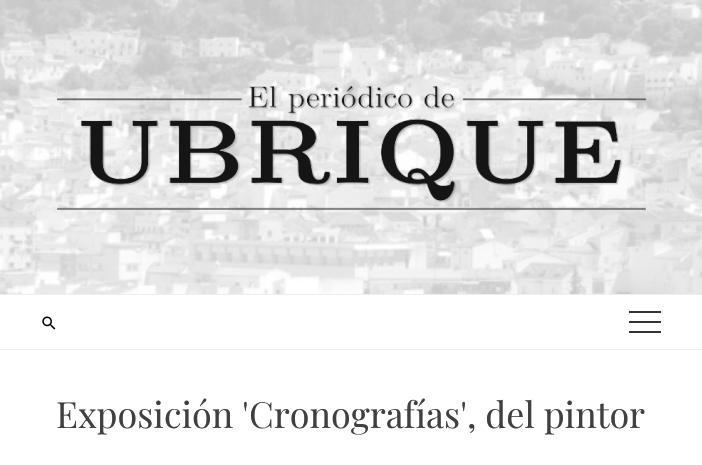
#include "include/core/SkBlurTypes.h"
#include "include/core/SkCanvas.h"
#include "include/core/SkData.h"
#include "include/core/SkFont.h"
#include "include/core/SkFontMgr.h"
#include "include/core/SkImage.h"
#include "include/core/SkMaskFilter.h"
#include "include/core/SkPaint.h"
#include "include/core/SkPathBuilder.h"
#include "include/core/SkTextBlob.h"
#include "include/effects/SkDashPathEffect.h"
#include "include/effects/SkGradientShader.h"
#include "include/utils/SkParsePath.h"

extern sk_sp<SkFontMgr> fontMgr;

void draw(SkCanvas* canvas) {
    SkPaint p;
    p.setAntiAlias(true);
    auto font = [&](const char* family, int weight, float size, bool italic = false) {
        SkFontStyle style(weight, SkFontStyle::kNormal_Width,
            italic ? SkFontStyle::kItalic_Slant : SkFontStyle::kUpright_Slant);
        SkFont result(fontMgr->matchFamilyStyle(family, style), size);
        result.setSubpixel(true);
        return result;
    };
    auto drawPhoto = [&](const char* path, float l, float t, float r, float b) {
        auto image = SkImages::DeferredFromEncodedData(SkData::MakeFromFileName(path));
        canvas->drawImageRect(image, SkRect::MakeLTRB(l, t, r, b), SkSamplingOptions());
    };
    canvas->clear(0xFFFFFFFF);
    drawPhoto("media/1.png", 0, 0, 702, 294);
    drawPhoto("media/2.png", 57, 86, 646, 210);
    p.setColor(0xFFEEEEEE);
    canvas->drawRect(SkRect::MakeLTRB(0, 294, 702, 295), p);
    canvas->drawRect(SkRect::MakeLTRB(0, 349, 702, 350), p);
    drawPhoto("media/3.png", 42, 316, 56, 330);
    {
        const struct { float l, t, r, b; SkColor color; } items[] = {
            {629, 311, 661, 313, 0xFF333333},
            {629, 331, 661, 333, 0xFF333333},
            {629, 321, 661, 323, 0xFF333333},
        };
        for (auto [l, t, r, b, color] : items) {
            p.setColor(color);
            canvas->drawRect(SkRect::MakeLTRB(l, t, r, b), p);
        }
    }
    auto font1 = font("Playfair Display", 400, 36);
    p.setColor(0xFF404040);
    canvas->drawString("Exposición 'Cronografías', del pintor", 56, 428, font1, p);
}
